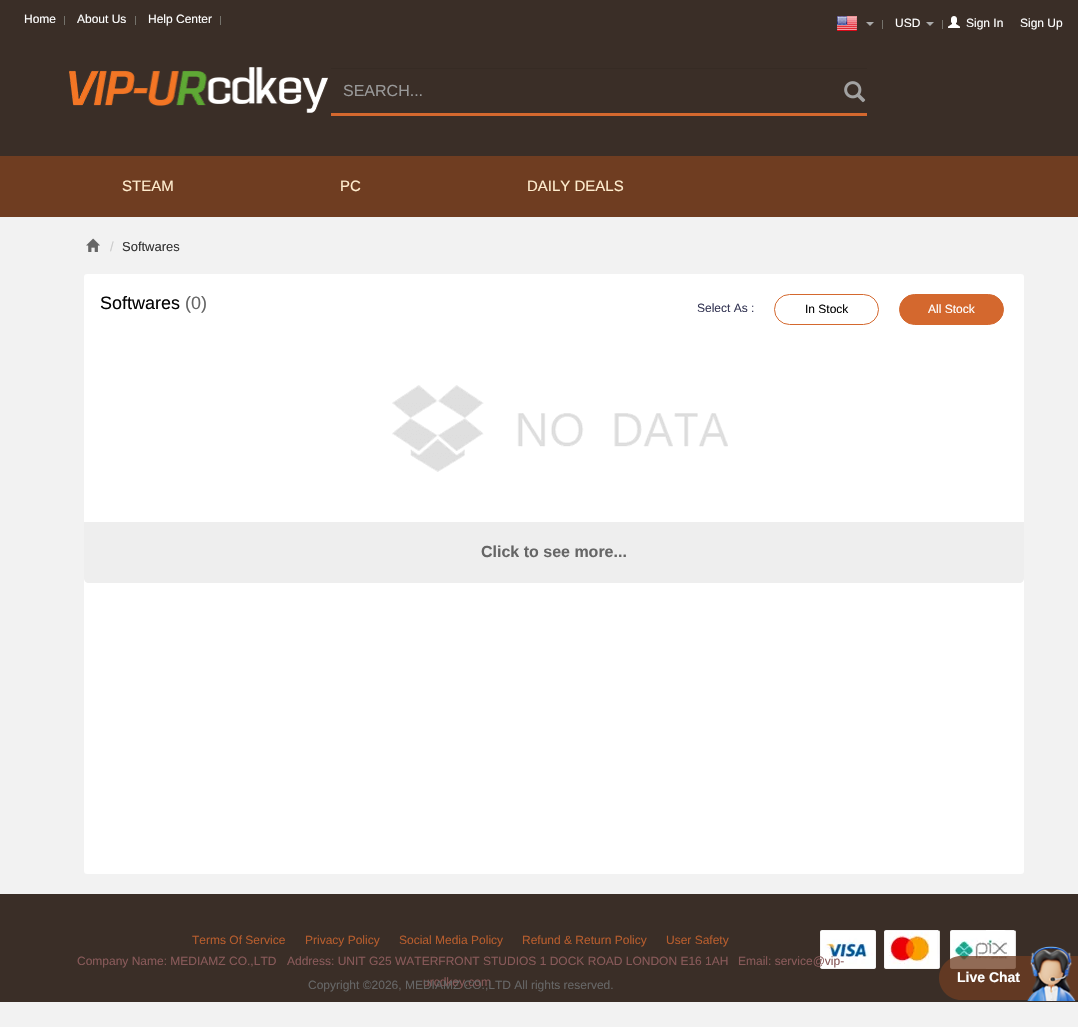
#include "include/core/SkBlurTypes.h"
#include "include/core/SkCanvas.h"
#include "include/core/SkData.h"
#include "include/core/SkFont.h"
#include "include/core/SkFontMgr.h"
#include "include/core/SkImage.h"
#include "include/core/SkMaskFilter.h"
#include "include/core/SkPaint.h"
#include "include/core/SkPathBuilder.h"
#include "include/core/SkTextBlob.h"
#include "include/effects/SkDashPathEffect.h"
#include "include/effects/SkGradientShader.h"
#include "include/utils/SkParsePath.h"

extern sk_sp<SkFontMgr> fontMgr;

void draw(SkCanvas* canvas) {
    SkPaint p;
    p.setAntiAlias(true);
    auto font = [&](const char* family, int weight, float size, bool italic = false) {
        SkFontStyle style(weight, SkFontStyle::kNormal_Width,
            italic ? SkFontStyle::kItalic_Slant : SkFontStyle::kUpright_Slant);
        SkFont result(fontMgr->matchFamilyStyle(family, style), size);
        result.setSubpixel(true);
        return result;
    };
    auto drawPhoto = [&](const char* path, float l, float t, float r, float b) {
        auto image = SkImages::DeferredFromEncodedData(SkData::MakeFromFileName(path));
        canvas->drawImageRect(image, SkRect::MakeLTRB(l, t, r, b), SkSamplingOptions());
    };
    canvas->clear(0xFFF2F2F2);
    p.setColor(0xFF3A2E27);
    canvas->drawRect(SkRect::MakeLTRB(0, 0, 1078, 156), p);
    p.setColor(0xFF74726B);
    canvas->drawRect(SkRect::MakeLTRB(64, 16, 65, 25), p);
    auto font1 = font("Liberation Sans", 400, 12);
    p.setColor(0xFFFFFFFF);
    canvas->drawString("Home", 24, 23, font1, p);
    p.setColor(0xFF74726B);
    canvas->drawRect(SkRect::MakeLTRB(135, 16, 136, 25), p);
    p.setColor(0xFFFFFFFF);
    canvas->drawString("About Us", 77, 23, font1, p);
    p.setColor(0xFF74726B);
    canvas->drawRect(SkRect::MakeLTRB(220, 16, 221, 25), p);
    p.setColor(0xFFFFFFFF);
    canvas->drawString("Help Center", 148, 23, font1, p);
    p.setColor(0xFF74726B);
    canvas->drawRect(SkRect::MakeLTRB(882, 20, 883, 29), p);
    drawPhoto("media/1.png", 837, 16, 857, 31);
    p.setColor(0xFFA9A9A9);
    canvas->drawPath(SkPathBuilder().moveTo(866, 22).lineTo(874, 22).lineTo(870, 26).close().detach(), p);
    p.setColor(0xFF74726B);
    canvas->drawRect(SkRect::MakeLTRB(942, 20, 943, 29), p);
    p.setColor(0xFFFFFFFF);
    canvas->drawString("USD", 895, 27, font1, p);
    p.setColor(0xFFA9A9A9);
    canvas->drawPath(SkPathBuilder().moveTo(926, 22).lineTo(934, 22).lineTo(930, 26).close().detach(), p);
    drawPhoto("media/2.png", 948, 16, 960, 28);
    p.setColor(0xFFFFFFFF);
    canvas->drawString("Sign In", 966, 27, font1, p);
    canvas->drawString("Sign Up", 1020, 27, font1, p);
    drawPhoto("media/3.png", 69, 67, 328, 113);
    p.setColor(0xFF362B24);
    canvas->drawRect(SkRect::MakeLTRB(331, 68, 867, 69), p);
    p.setColor(0xFFD4682E);
    canvas->drawRect(SkRect::MakeLTRB(331, 113, 867, 116), p);
    auto font2 = font("Liberation Sans", 400, 16);
    p.setColor(0xFF999999);
    canvas->drawString("SEARCH...", 343, 96, font2, p);
    drawPhoto("media/4.png", 844, 81, 866, 103);
    p.setColor(0xFF6F3D21);
    canvas->drawRect(SkRect::MakeLTRB(0, 156, 1078, 217), p);
    auto font3 = font("Liberation Sans", 400, 15);
    p.setColor(0xFFFFEDCE);
    {
        const struct { const char* s; float x, y; } items[] = {
            {"STEAM", 122, 191},
            {"PC", 340, 191},
            {"DAILY DEALS", 527, 191},
        };
        for (auto [s, x, y] : items) {
            canvas->drawString(s, x, y, font3, p);
        }
    }
    drawPhoto("media/5.png", 86, 238, 100, 252);
    auto font4 = font("Liberation Sans", 400, 13);
    p.setColor(0xFFCCCCCC);
    canvas->drawString("/", 110, 251, font4, p);
    p.setColor(0xFF333333);
    canvas->drawString("Softwares", 122, 251, font4, p);
    p.setColor(0xFFFFFFFF);
    canvas->drawRoundRect(SkRect::MakeLTRB(84, 274, 1024, 874), 3, 3, p);
    auto font5 = font("Liberation Sans", 400, 18);
    p.setColor(0xFF050505);
    canvas->drawString("Softwares", 100, 309, font5, p);
    p.setColor(0xFF666666);
    canvas->drawString("(0)", 185, 309, font5, p);
    p.setColor(0xFF373856);
    canvas->drawString("Select As :", 697, 312, font1, p);
    p.setStyle(SkPaint::kStroke_Style);
    p.setStrokeWidth(1);
    p.setColor(0xFFD4682E);
    canvas->drawRoundRect(SkRect::MakeLTRB(774.5f, 294.5f, 878.5f, 324.5f), 15, 15, p);
    p.setStyle(SkPaint::kFill_Style);
    p.setColor(0xFF050505);
    canvas->drawString("In Stock", 805, 313, font1, p);
    p.setColor(0xFFD4682E);
    canvas->drawRoundRect(SkRect::MakeLTRB(899.5f, 294.5f, 1003.5f, 324.5f), 15, 15, p);
    p.setStyle(SkPaint::kStroke_Style);
    canvas->drawRoundRect(SkRect::MakeLTRB(899.5f, 294.5f, 1003.5f, 324.5f), 15, 15, p);
    p.setStyle(SkPaint::kFill_Style);
    p.setColor(0xFFFFFFFF);
    canvas->drawString("All Stock", 928, 313, font1, p);
    drawPhoto("media/6.png", 392, 385, 728, 472);
    p.setColor(0xFFEEEEEE);
    canvas->drawPath(SkPathBuilder().moveTo(84, 522).lineTo(1024, 522).lineTo(1024, 578).cubicTo(1024, 581, 1022, 583, 1019, 583).lineTo(89, 583).cubicTo(86, 583, 84, 581, 84, 578).close().detach(), p);
    auto font6 = font("Liberation Sans", 700, 16);
    p.setColor(0xFF666666);
    canvas->drawString("Click to see more...", 481, 557, font6, p);
    p.setColor(0xFF3A2E27);
    canvas->drawRect(SkRect::MakeLTRB(0, 894, 1078, 1002), p);
    p.setColor(0xFFB55C2D);
    {
        const struct { const char* s; float x, y; } items[] = {
            {"Terms Of Service", 192, 944},
            {"Privacy Policy", 305, 944},
            {"Social Media Policy", 399, 944},
            {"Refund & Return Policy", 522, 944},
            {"User Safety", 666, 944},
        };
        for (auto [s, x, y] : items) {
            canvas->drawString(s, x, y, font1, p);
        }
    }
    p.setColor(0xFF885959);
    canvas->drawString("Company Name: MEDIAMZ CO.,LTD", 77, 965, font1, p);
    canvas->drawString("Address: UNIT G25 WATERFRONT STUDIOS 1 DOCK ROAD LONDON E16 1AH", 287, 965, font1, p);
    drawPhoto("media/7.png", 820, 930, 1016, 969);
    canvas->drawString("Email: service@vip-", 738, 965, font1, p);
    canvas->drawString("urcdkey.com", 423, 986, font1, p);
    p.setColor(0xFF666666);
    canvas->drawString("Copyright ©2026, MEDIAMZ CO.,LTD All rights reserved.", 308, 989, font1, p);
    p.setColor(0xC26F3D21);
    canvas->drawPath(SkPathBuilder().moveTo(961, 956).lineTo(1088, 956).lineTo(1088, 1000).lineTo(961, 1000).cubicTo(949, 1000, 939, 990, 939, 978).cubicTo(939, 966, 949, 956, 961, 956).close().detach(), p);
    auto font7 = font("Liberation Sans", 700, 14);
    p.setColor(0xFFFFFFFF);
    canvas->drawString("Live Chat", 957, 982, font7, p);
    drawPhoto("media/8.png", 1027, 946, 1076, 1001);
}
